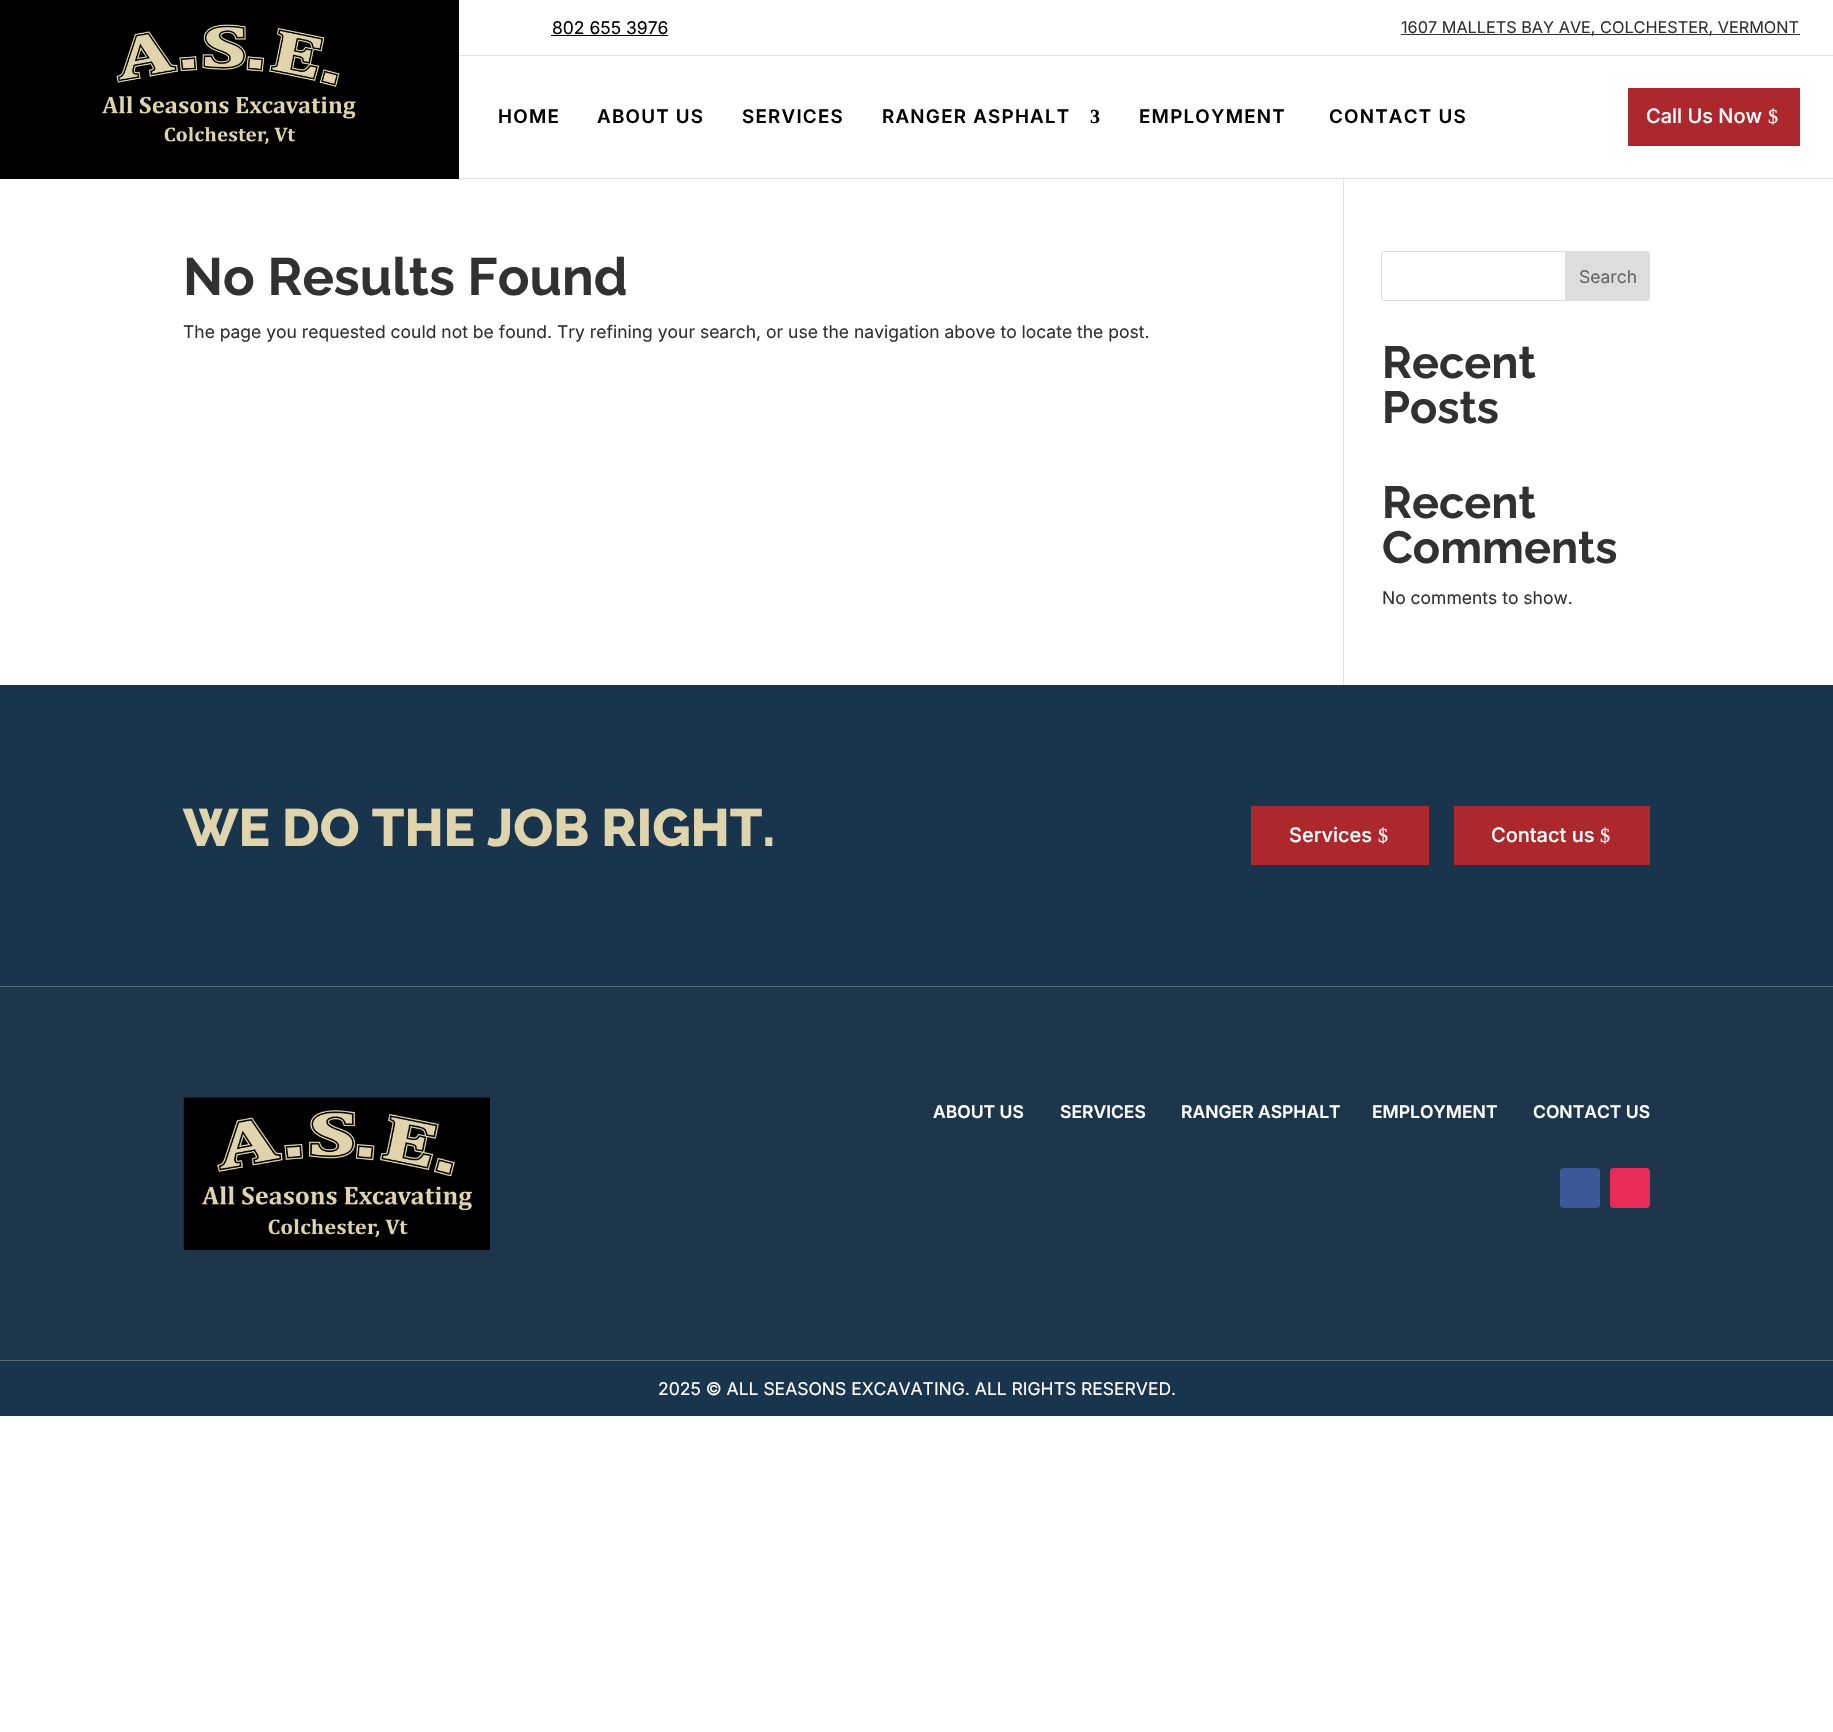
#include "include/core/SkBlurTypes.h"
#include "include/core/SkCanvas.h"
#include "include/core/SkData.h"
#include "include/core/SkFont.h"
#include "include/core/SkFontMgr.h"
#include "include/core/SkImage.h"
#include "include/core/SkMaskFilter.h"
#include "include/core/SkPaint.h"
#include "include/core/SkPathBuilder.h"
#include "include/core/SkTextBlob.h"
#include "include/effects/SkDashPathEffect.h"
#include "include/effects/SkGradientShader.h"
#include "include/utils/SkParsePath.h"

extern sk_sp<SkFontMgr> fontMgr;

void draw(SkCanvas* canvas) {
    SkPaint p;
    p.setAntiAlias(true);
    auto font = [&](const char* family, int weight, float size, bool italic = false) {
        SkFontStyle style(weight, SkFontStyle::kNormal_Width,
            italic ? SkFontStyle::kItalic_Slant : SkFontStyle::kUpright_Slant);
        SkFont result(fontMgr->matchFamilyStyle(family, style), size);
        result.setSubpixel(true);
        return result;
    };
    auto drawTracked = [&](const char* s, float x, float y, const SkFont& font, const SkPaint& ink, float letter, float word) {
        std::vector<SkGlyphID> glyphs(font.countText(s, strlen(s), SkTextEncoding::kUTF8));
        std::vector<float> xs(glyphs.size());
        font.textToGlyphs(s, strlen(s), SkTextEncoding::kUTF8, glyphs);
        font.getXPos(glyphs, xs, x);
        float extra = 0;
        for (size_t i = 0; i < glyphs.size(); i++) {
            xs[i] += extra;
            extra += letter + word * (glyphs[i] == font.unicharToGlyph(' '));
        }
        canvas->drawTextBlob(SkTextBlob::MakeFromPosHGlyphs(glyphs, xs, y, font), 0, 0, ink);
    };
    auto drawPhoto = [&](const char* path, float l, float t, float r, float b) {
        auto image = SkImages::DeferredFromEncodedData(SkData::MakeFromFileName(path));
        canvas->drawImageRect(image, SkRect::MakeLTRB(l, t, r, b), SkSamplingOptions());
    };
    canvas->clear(0xFFFFFFFF);
    p.setColor(0xFF000000);
    canvas->drawRect(SkRect::MakeLTRB(0, 0, 459, 179), p);
    drawPhoto("media/1.png", 101, 24, 356, 144);
    p.setColor(0xFFE1E3E1);
    canvas->drawRect(SkRect::MakeLTRB(459, 55, 1833, 56), p);
    auto font1 = font("Inter", 400, 17.5f);
    p.setColor(0xFF000000);
    canvas->drawString("802 655 3976", 552, 34, font1, p);
    canvas->drawRect(SkRect::MakeLTRB(551, 35, 668, 36), p);
    p.setColor(0xFF313131);
    canvas->drawRect(SkRect::MakeLTRB(1401, 34, 1800, 35), p);
    auto font2 = font("Inter", 400, 16.25f);
    canvas->drawString("1607 MALLETS BAY AVE, COLCHESTER, VERMONT", 1401, 33, font2, p);
    p.setColor(0xFFE1E3E1);
    canvas->drawRect(SkRect::MakeLTRB(459, 178, 1833, 179), p);
    auto font3 = font("Inter", 600, 18.75f);
    p.setColor(0xFF000000);
    {
        const struct { const char* s; float x, y; } items[] = {
            {"HOME", 498, 123},
            {"ABOUT US", 597, 123},
            {"SERVICES", 742, 123},
            {"RANGER ASPHALT", 882, 123},
        };
        for (auto [s, x, y] : items) {
            drawTracked(s, x, y, font3, p, 1.25f, 0);
        }
    }
    auto font4 = font("Liberation Serif", 700, 20);
    drawTracked("3", 1090, 123, font4, p, 1.25f, 0);
    drawTracked("EMPLOYMENT", 1139, 123, font3, p, 1.25f, 0);
    drawTracked("CONTACT US", 1329, 123, font3, p, 1.25f, 0);
    p.setColor(0xFFAD282D);
    canvas->drawRect(SkRect::MakeLTRB(1628, 88, 1800, 146), p);
    auto font5 = font("Inter", 500, 20);
    p.setColor(0xFFFFFFFF);
    canvas->drawString("Call Us Now", 1646, 123, font5, p);
    auto font6 = font("Liberation Serif", 400, 20);
    canvas->drawString("$", 1768, 123, font6, p);
    p.setColor(0xFFE2E2E2);
    canvas->drawRect(SkRect::MakeLTRB(1343, 179, 1344, 685), p);
    auto font7 = font("Raleway", 700, 52.5f);
    p.setColor(0xFF313131);
    canvas->drawString("No Results Found", 183, 295, font7, p);
    canvas->drawString("The page you requested could not be found. Try refining your search, or use the navigation above to locate the post.", 183, 338, font1, p);
    p.setStyle(SkPaint::kStroke_Style);
    p.setStrokeWidth(1);
    p.setColor(0xFFDDDDDD);
    canvas->drawRoundRect(SkRect::MakeLTRB(1381.5f, 251.5f, 1649.5f, 300.5f), 3.5f, 3.5f, p);
    p.setStyle(SkPaint::kFill_Style);
    canvas->drawPath(SkPathBuilder().moveTo(1565.5f, 251.5f).lineTo(1646, 251.5f).cubicTo(1648, 251.5f, 1649.5f, 253, 1649.5f, 255).lineTo(1649.5f, 297).cubicTo(1649.5f, 299, 1648, 300.5f, 1646, 300.5f).lineTo(1565.5f, 300.5f).close().detach(), p);
    p.setStyle(SkPaint::kStroke_Style);
    canvas->drawPath(SkPathBuilder().moveTo(1565.5f, 251.5f).lineTo(1646, 251.5f).cubicTo(1648, 251.5f, 1649.5f, 253, 1649.5f, 255).lineTo(1649.5f, 297).cubicTo(1649.5f, 299, 1648, 300.5f, 1646, 300.5f).lineTo(1565.5f, 300.5f).close().detach(), p);
    p.setStyle(SkPaint::kFill_Style);
    p.setColor(0xFF666666);
    canvas->drawString("Search", 1579, 283, font1, p);
    auto font8 = font("Raleway", 700, 45);
    p.setColor(0xFF313131);
    {
        const struct { const char* s; float x, y; } items[] = {
            {"Recent", 1382, 378},
            {"Posts", 1382, 423},
            {"Recent", 1382, 518},
            {"Comments", 1382, 563},
        };
        for (auto [s, x, y] : items) {
            canvas->drawString(s, x, y, font8, p);
        }
    }
    canvas->drawString("No comments to show.", 1382, 604, font1, p);
    p.setColor(0xFF19354D);
    canvas->drawRect(SkRect::MakeLTRB(0, 685, 1833, 986), p);
    auto font9 = font("Raleway", 800, 52.5f);
    p.setColor(0xFFE0D4AC);
    canvas->drawString("WE DO THE JOB RIGHT.", 183, 846, font9, p);
    p.setColor(0xFFAD282D);
    canvas->drawRect(SkRect::MakeLTRB(1251, 806, 1429, 865), p);
    p.setColor(0xFFFFFFFF);
    canvas->drawString("Services", 1289, 842, font5, p);
    canvas->drawString("$", 1378, 842, font6, p);
    p.setColor(0xFFAD282D);
    canvas->drawRect(SkRect::MakeLTRB(1454, 806, 1650, 865), p);
    p.setColor(0xFFFFFFFF);
    canvas->drawString("Contact us", 1491, 842, font5, p);
    canvas->drawString("$", 1600, 842, font6, p);
    {
        const struct { float l, t, r, b; SkColor color; } items[] = {
            {0, 987, 1833, 1360, 0xFF1E364C},
            {0, 986, 1833, 987, 0xFF576877},
            {0, 1360, 1833, 1361, 0xFF576877},
        };
        for (auto [l, t, r, b, color] : items) {
            p.setColor(color);
            canvas->drawRect(SkRect::MakeLTRB(l, t, r, b), p);
        }
    }
    drawPhoto("media/2.png", 183, 1097, 490, 1250);
    auto font10 = font("Inter", 600, 17.5f);
    p.setColor(0xFFFFFFFF);
    {
        const struct { const char* s; float x, y; } items[] = {
            {"ABOUT US", 933, 1118},
            {"SERVICES", 1060, 1118},
            {"RANGER ASPHALT", 1181, 1118},
            {"EMPLOYMENT", 1372, 1118},
            {"CONTACT US", 1533, 1118},
        };
        for (auto [s, x, y] : items) {
            canvas->drawString(s, x, y, font10, p);
        }
    }
    p.setColor(0xFF3B5998);
    canvas->drawRoundRect(SkRect::MakeLTRB(1560, 1168, 1600, 1208), 4, 4, p);
    p.setColor(0xFFEA2C59);
    canvas->drawRoundRect(SkRect::MakeLTRB(1610, 1168, 1650, 1208), 4, 4, p);
    p.setColor(0xFF19354D);
    canvas->drawRect(SkRect::MakeLTRB(0, 1361, 1833, 1416), p);
    p.setColor(0xFFFFFFFF);
    canvas->drawString("2025 © ALL SEASONS EXCAVATING. ALL RIGHTS RESERVED.", 658, 1395, font1, p);
}
